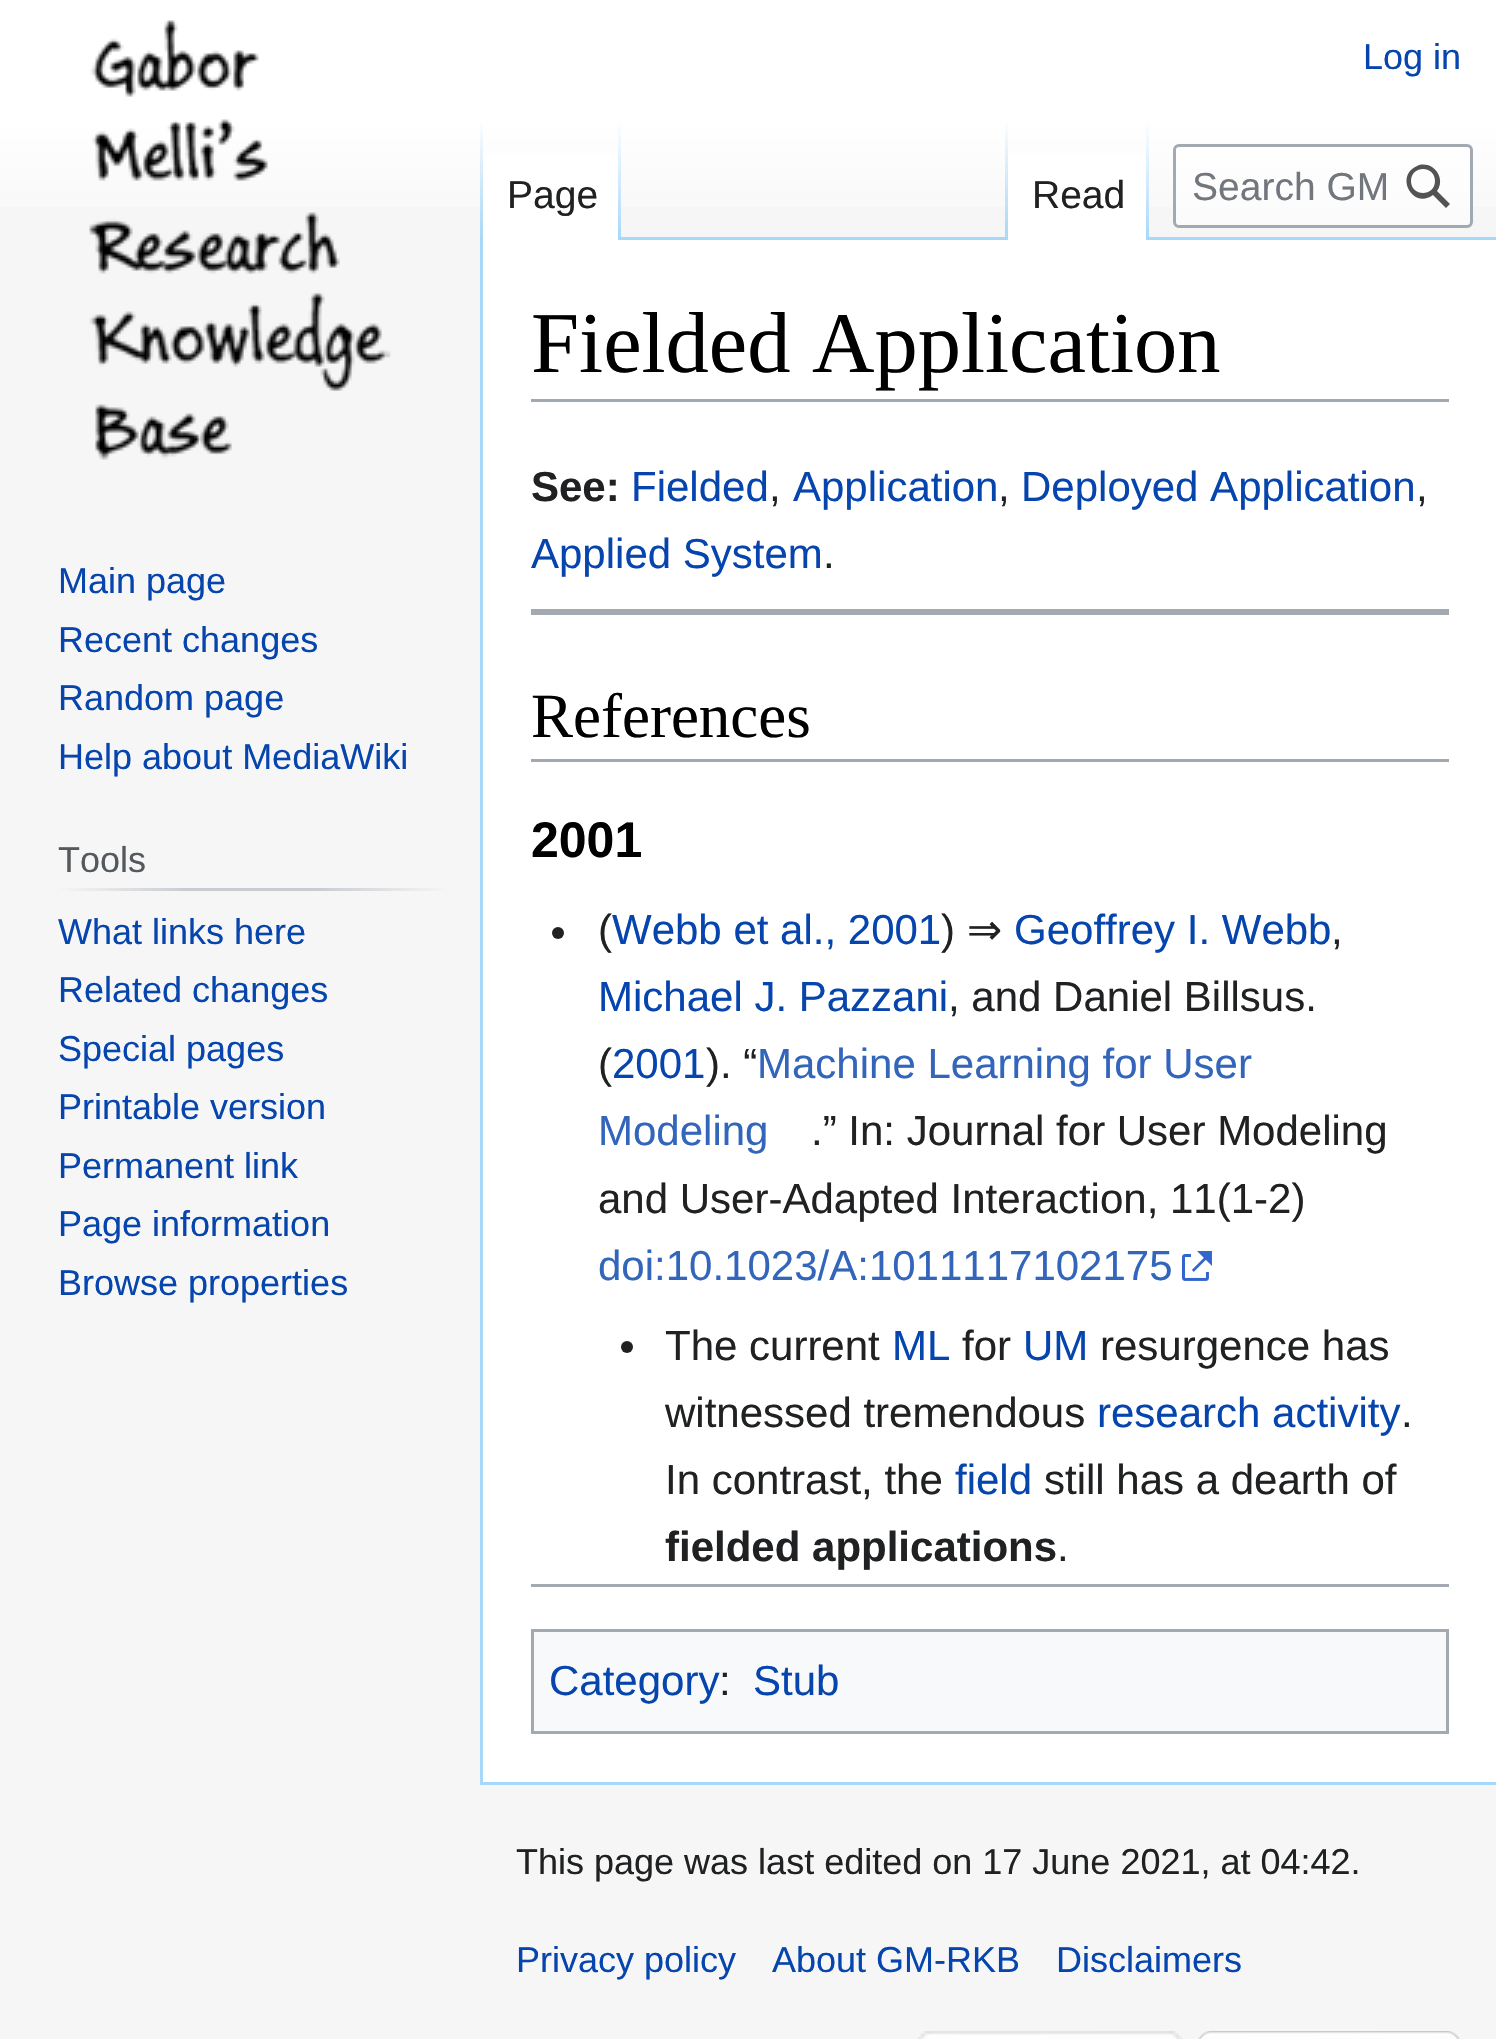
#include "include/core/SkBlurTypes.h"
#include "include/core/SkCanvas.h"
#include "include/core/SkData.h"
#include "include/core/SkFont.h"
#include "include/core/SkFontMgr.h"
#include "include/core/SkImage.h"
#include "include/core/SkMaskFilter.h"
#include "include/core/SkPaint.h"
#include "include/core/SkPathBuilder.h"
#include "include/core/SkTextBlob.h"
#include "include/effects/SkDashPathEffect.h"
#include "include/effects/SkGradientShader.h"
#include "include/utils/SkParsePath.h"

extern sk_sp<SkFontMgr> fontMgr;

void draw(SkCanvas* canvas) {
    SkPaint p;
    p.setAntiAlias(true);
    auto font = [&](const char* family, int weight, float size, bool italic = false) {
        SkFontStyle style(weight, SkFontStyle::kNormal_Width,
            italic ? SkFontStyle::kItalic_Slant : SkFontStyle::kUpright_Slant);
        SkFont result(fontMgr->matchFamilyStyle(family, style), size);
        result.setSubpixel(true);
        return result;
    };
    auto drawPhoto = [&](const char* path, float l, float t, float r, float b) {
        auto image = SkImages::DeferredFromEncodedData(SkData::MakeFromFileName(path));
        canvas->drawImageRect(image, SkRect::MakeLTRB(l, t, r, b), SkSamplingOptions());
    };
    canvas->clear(0xFFF6F6F6);
    {
        const SkColor colors[] = {0xFFFFFFFF, 0xFFF6F6F6};
        const float stops[] = {0.5f, 1};
        const SkPoint ends[] = {{749, 0}, {749, 240}};
        p.setShader(SkGradientShader::MakeLinear(ends, colors, stops, 2, SkTileMode::kClamp));
        p.setAlpha(255);
    }
    canvas->drawRect(SkRect::MakeLTRB(0, 0, 1496, 207), p);
    auto font1 = font("Liberation Sans", 400, 36);
    p.setShader(nullptr);
    p.setColor(0xFF0645AD);
    canvas->drawString("Log in", 1363, 69, font1, p);
    p.setColor(0xFFA7D7F9);
    canvas->drawRect(SkRect::MakeLTRB(480, 1782, 1496, 1785), p);
    canvas->drawRect(SkRect::MakeLTRB(480, 237, 483, 1785), p);
    {
        const SkColor colors[] = {0x00A7D7F9, 0xFFA7D7F9};
        const float stops[] = {0, 1};
        const SkPoint ends[] = {{482, 120}, {482, 240}};
        p.setShader(SkGradientShader::MakeLinear(ends, colors, stops, 2, SkTileMode::kClamp));
        p.setAlpha(255);
    }
    canvas->drawRect(SkRect::MakeLTRB(480, 120, 483, 240), p);
    p.setShader(nullptr);
    p.setColor(0xFFFFFFFF);
    canvas->drawRect(SkRect::MakeLTRB(483, 153, 618, 240), p);
    {
        const SkColor colors[] = {0xFFFFFFFF, 0xFFA7D7F9};
        const float stops[] = {0, 1};
        const SkPoint ends[] = {{620, 120}, {620, 240}};
        p.setShader(SkGradientShader::MakeLinear(ends, colors, stops, 2, SkTileMode::kClamp));
        p.setAlpha(255);
    }
    canvas->drawRect(SkRect::MakeLTRB(618, 120, 621, 240), p);
    auto font2 = font("Liberation Sans", 400, 39);
    p.setShader(nullptr);
    p.setColor(0xFF202122);
    canvas->drawString("Page", 507, 208, font2, p);
    p.setColor(0xFFA7D7F9);
    canvas->drawRect(SkRect::MakeLTRB(621, 237, 1496, 240), p);
    {
        const SkColor colors[] = {0x00A7D7F9, 0xFFA7D7F9};
        const float stops[] = {0, 1};
        const SkPoint ends[] = {{1007, 120}, {1007, 240}};
        p.setShader(SkGradientShader::MakeLinear(ends, colors, stops, 2, SkTileMode::kClamp));
        p.setAlpha(255);
    }
    canvas->drawRect(SkRect::MakeLTRB(1005, 120, 1008, 240), p);
    p.setShader(nullptr);
    p.setColor(0xFFFFFFFF);
    canvas->drawRect(SkRect::MakeLTRB(1008, 153, 1146, 240), p);
    {
        const SkColor colors[] = {0xFFFFFFFF, 0xFFA7D7F9};
        const float stops[] = {0, 1};
        const SkPoint ends[] = {{1148, 120}, {1148, 240}};
        p.setShader(SkGradientShader::MakeLinear(ends, colors, stops, 2, SkTileMode::kClamp));
        p.setAlpha(255);
    }
    canvas->drawRect(SkRect::MakeLTRB(1146, 120, 1149, 240), p);
    p.setShader(nullptr);
    p.setColor(0xFF202122);
    canvas->drawString("Read", 1032, 208, font2, p);
    p.setColor(0x80FFFFFF);
    canvas->drawRoundRect(SkRect::MakeLTRB(1174.5f, 145.5f, 1471.5f, 226.5f), 4.5f, 4.5f, p);
    p.setStyle(SkPaint::kStroke_Style);
    p.setStrokeWidth(3);
    p.setColor(0xFFA2A9B1);
    canvas->drawRoundRect(SkRect::MakeLTRB(1174.5f, 145.5f, 1471.5f, 226.5f), 4.5f, 4.5f, p);
    canvas->save();
    canvas->clipRect(SkRect::MakeLTRB(1191, 165, 1386, 210));
    p.setStyle(SkPaint::kFill_Style);
    p.setColor(0xFF72777D);
    canvas->drawString("Search GM", 1192, 200, font2, p);
    canvas->restore();
    p.setColor(0xFF535353);
    canvas->drawPath(SkPathBuilder(SkPathFillType::kEvenOdd).moveTo(1433, 195).cubicTo(1413, 210, 1394, 176, 1417, 166).cubicTo(1421, 164, 1427, 164, 1432, 167).cubicTo(1440, 172, 1443, 183, 1437, 191).lineTo(1450, 204).lineTo(1446, 208).close().moveTo(1435, 181).cubicTo(1435, 197, 1411, 197, 1411, 181).cubicTo(1411, 165, 1435, 165, 1435, 181).close().detach(), p);
    drawPhoto("media/1.png", 89, 20, 391, 460);
    p.setColor(0xFF0645AD);
    {
        const struct { const char* s; float x, y; } items[] = {
            {"Main page", 58, 593},
            {"Recent changes", 58, 652},
            {"Random page", 58, 710},
            {"Help about MediaWiki", 58, 769},
        };
        for (auto [s, x, y] : items) {
            canvas->drawString(s, x, y, font1, p);
        }
    }
    {
        const SkColor colors[] = {0xFFF6F6F6, 0xFFC8CCD1, 0xFFC8CCD1, 0xFFF6F6F6};
        const float stops[] = {0, 0.33f, 0.66f, 1};
        const SkPoint ends[] = {{57, 890}, {450, 890}};
        p.setShader(SkGradientShader::MakeLinear(ends, colors, stops, 4, SkTileMode::kClamp));
        p.setAlpha(255);
    }
    canvas->drawRect(SkRect::MakeLTRB(57, 888, 450, 891), p);
    p.setShader(nullptr);
    p.setColor(0xFF54595D);
    canvas->drawString("Tools", 58, 872, font1, p);
    p.setColor(0xFF0645AD);
    {
        const struct { const char* s; float x, y; } items[] = {
            {"What links here", 58, 944},
            {"Related changes", 58, 1002},
            {"Special pages", 58, 1061},
            {"Printable version", 58, 1119},
            {"Permanent link", 58, 1178},
            {"Page information", 58, 1236},
            {"Browse properties", 58, 1295},
        };
        for (auto [s, x, y] : items) {
            canvas->drawString(s, x, y, font1, p);
        }
    }
    p.setColor(0xFFFFFFFF);
    canvas->drawRect(SkRect::MakeLTRB(483, 240, 1496, 1782), p);
    p.setColor(0xFFA2A9B1);
    canvas->drawRect(SkRect::MakeLTRB(531, 399, 1449, 402), p);
    auto font3 = font("Liberation Serif", 400, 86.5f);
    p.setColor(0xFF000000);
    canvas->drawString("Fielded Application", 531, 372, font3, p);
    auto font4 = font("Liberation Sans", 700, 42);
    p.setColor(0xFF202122);
    canvas->drawString("See:", 531, 501, font4, p);
    auto font5 = font("Liberation Sans", 400, 42);
    p.setColor(0xFF0645AD);
    canvas->drawString("Fielded", 631, 501, font5, p);
    p.setColor(0xFF202122);
    canvas->drawString(",", 769, 501, font5, p);
    p.setColor(0xFF0645AD);
    canvas->drawString("Application", 793, 501, font5, p);
    p.setColor(0xFF202122);
    canvas->drawString(",", 998, 501, font5, p);
    p.setColor(0xFF0645AD);
    canvas->drawString("Deployed Application", 1021, 501, font5, p);
    p.setColor(0xFF202122);
    canvas->drawString(",", 1416, 501, font5, p);
    p.setColor(0xFF0645AD);
    canvas->drawString("Applied System", 531, 568, font5, p);
    p.setColor(0xFF202122);
    canvas->drawString(".", 823, 568, font5, p);
    p.setColor(0xFFA2A9B1);
    canvas->drawRect(SkRect::MakeLTRB(531, 609, 1449, 615), p);
    canvas->drawRect(SkRect::MakeLTRB(531, 759, 1449, 762), p);
    auto font6 = font("Liberation Serif", 400, 63);
    p.setColor(0xFF000000);
    canvas->drawString("References", 531, 737, font6, p);
    auto font7 = font("Liberation Sans", 700, 50);
    canvas->drawString("2001", 531, 857, font7, p);
    p.setColor(0xFF202122);
    canvas->drawCircle(558, 933, 6, p);
    canvas->drawString("(", 598, 944, font5, p);
    p.setColor(0xFF0645AD);
    canvas->drawString("Webb et al., 2001", 612, 944, font5, p);
    p.setColor(0xFF202122);
    canvas->drawString(")", 941, 944, font5, p);
    auto font8 = font("DejaVu Sans", 400, 42);
    canvas->drawString("⇒", 967, 944, font8, p);
    p.setColor(0xFF0645AD);
    canvas->drawString("Geoffrey I. Webb", 1014, 944, font5, p);
    p.setColor(0xFF202122);
    canvas->drawString(",", 1331, 944, font5, p);
    p.setColor(0xFF0645AD);
    canvas->drawString("Michael J. Pazzani", 598, 1011, font5, p);
    p.setColor(0xFF202122);
    canvas->drawString(", and Daniel Billsus.", 948, 1011, font5, p);
    canvas->drawString("(", 598, 1078, font5, p);
    p.setColor(0xFF0645AD);
    canvas->drawString("2001", 612, 1078, font5, p);
    p.setColor(0xFF202122);
    canvas->drawString("). “", 706, 1078, font5, p);
    p.setColor(0xFF3366BB);
    canvas->drawString("Machine Learning for User", 757, 1078, font5, p);
    canvas->drawString("Modeling", 598, 1145, font5, p);
    p.setColor(0xFF202122);
    canvas->drawString(".” In: Journal for User Modeling", 811, 1145, font5, p);
    canvas->drawString("and User-Adapted Interaction, 11(1-2)", 598, 1213, font5, p);
    p.setColor(0xFF3366BB);
    canvas->drawString("doi:10.1023/A:1011117102175", 598, 1280, font5, p);
    drawPhoto("media/2.png", 1182, 1251, 1212, 1281);
    p.setColor(0xFF202122);
    canvas->drawCircle(627, 1347, 6, p);
    canvas->drawString("The current", 665, 1360, font5, p);
    p.setColor(0xFF0645AD);
    canvas->drawString("ML", 892, 1360, font5, p);
    p.setColor(0xFF202122);
    canvas->drawString("for", 962, 1360, font5, p);
    p.setColor(0xFF0645AD);
    canvas->drawString("UM", 1023, 1360, font5, p);
    p.setColor(0xFF202122);
    canvas->drawString("resurgence has", 1100, 1360, font5, p);
    canvas->drawString("witnessed tremendous", 665, 1427, font5, p);
    p.setColor(0xFF0645AD);
    canvas->drawString("research activity", 1097, 1427, font5, p);
    p.setColor(0xFF202122);
    canvas->drawString(".", 1401, 1427, font5, p);
    canvas->drawString("In contrast, the", 665, 1494, font5, p);
    p.setColor(0xFF0645AD);
    canvas->drawString("field", 955, 1494, font5, p);
    p.setColor(0xFF202122);
    canvas->drawString("still has a dearth of", 1044, 1494, font5, p);
    canvas->drawString("fielded applications", 665, 1561, font4, p);
    canvas->drawString(".", 1057, 1561, font5, p);
    p.setColor(0xFFA2A9B1);
    canvas->drawRect(SkRect::MakeLTRB(531, 1584, 1449, 1587), p);
    p.setColor(0xFFF8F9FA);
    canvas->drawRect(SkRect::MakeLTRB(532.5f, 1630.5f, 1447.5f, 1732.5f), p);
    p.setStyle(SkPaint::kStroke_Style);
    p.setColor(0xFFA2A9B1);
    canvas->drawRect(SkRect::MakeLTRB(532.5f, 1630.5f, 1447.5f, 1732.5f), p);
    p.setStyle(SkPaint::kFill_Style);
    p.setColor(0xFF0645AD);
    canvas->drawString("Category", 549, 1695, font5, p);
    p.setColor(0xFF202122);
    canvas->drawString(":", 719, 1695, font5, p);
    p.setColor(0xFF0645AD);
    canvas->drawString("Stub", 753, 1695, font5, p);
    p.setColor(0xFF202122);
    canvas->drawString("This page was last edited on 17 June 2021, at 04:42.", 516, 1874, font1, p);
    p.setColor(0xFF0645AD);
    {
        const struct { const char* s; float x, y; } items[] = {
            {"Privacy policy", 516, 1972},
            {"About GM-RKB", 772, 1972},
            {"Disclaimers", 1056, 1972},
        };
        for (auto [s, x, y] : items) {
            canvas->drawString(s, x, y, font1, p);
        }
    }
    drawPhoto("media/3.png", 918, 2031, 1182, 2039);
    drawPhoto("media/4.png", 1198, 2031, 1460, 2039);
}
